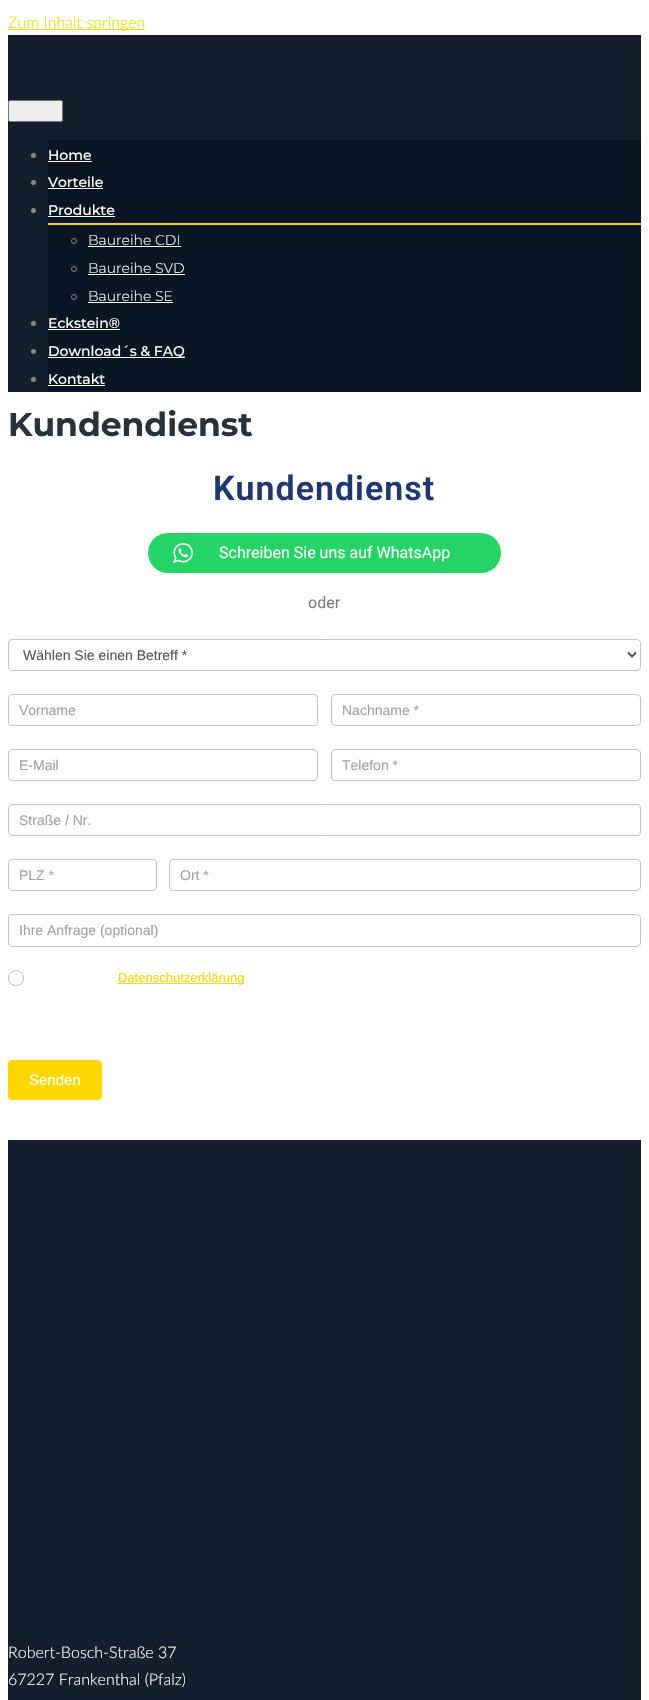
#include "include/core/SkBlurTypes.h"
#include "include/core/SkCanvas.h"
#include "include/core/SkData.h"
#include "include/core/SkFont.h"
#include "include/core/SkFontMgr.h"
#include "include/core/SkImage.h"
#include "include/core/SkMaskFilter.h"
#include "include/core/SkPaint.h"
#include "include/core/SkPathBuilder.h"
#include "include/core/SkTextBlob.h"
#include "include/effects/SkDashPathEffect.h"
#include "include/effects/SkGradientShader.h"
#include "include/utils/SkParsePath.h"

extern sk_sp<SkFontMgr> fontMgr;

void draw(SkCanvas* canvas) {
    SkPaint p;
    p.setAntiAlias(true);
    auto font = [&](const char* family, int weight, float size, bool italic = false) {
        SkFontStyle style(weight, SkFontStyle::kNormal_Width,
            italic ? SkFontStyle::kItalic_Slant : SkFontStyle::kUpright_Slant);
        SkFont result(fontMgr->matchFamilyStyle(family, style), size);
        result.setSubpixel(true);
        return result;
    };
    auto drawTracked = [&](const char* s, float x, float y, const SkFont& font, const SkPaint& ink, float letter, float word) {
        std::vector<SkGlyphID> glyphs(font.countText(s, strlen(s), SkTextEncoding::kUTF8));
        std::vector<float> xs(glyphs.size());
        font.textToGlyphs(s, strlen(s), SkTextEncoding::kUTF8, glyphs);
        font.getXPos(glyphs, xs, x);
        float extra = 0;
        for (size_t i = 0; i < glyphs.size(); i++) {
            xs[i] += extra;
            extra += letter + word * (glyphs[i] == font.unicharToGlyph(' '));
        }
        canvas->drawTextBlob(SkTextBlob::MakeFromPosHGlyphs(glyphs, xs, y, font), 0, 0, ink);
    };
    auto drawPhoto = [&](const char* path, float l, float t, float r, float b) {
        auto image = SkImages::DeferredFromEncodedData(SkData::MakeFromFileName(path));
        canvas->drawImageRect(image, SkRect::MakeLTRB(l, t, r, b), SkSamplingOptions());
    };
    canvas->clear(0xFFFFFFFF);
    p.setColor(0xFFFFD600);
    canvas->drawRect(SkRect::MakeLTRB(8, 29, 145, 30), p);
    auto font1 = font("Lato", 300, 16);
    canvas->drawString("Zum Inhalt springen", 8, 28, font1, p);
    p.setColor(0xFF131F2C);
    canvas->drawRect(SkRect::MakeLTRB(8, 35, 641, 392), p);
    p.setColor(0xFFEFEFEF);
    canvas->drawRoundRect(SkRect::MakeLTRB(8.5f, 100.5f, 62.5f, 121.5f), 1.5f, 1.5f, p);
    p.setStyle(SkPaint::kStroke_Style);
    p.setStrokeWidth(1);
    p.setColor(0xFF767676);
    canvas->drawRoundRect(SkRect::MakeLTRB(8.5f, 100.5f, 62.5f, 121.5f), 1.5f, 1.5f, p);
    p.setStyle(SkPaint::kFill_Style);
    p.setColor(0xFF0A1623);
    canvas->drawRect(SkRect::MakeLTRB(48, 140, 641, 392), p);
    p.setColor(0xFF888888);
    canvas->drawCircle(33.5f, 155.5f, 2.5f, p);
    auto font2 = font("Montserrat", 500, 14);
    p.setColor(0xFFFFFFFF);
    canvas->drawString("Home", 48, 160, font2, p);
    canvas->drawRect(SkRect::MakeLTRB(48, 161, 92, 162), p);
    p.setColor(0xFF888888);
    canvas->drawCircle(33.5f, 182.5f, 2.5f, p);
    p.setColor(0xFFFFFFFF);
    canvas->drawString("Vorteile", 48, 187, font2, p);
    canvas->drawRect(SkRect::MakeLTRB(48, 188, 103, 189), p);
    p.setColor(0xFF888888);
    canvas->drawCircle(33.5f, 210.5f, 2.5f, p);
    p.setColor(0xFFFFFFFF);
    canvas->drawString("Produkte", 48, 215, font2, p);
    canvas->drawRect(SkRect::MakeLTRB(48, 216, 115, 217), p);
    p.setColor(0xFFFFD600);
    canvas->drawRect(SkRect::MakeLTRB(48, 223, 641, 225), p);
    p.setStyle(SkPaint::kStroke_Style);
    p.setColor(0xFF888888);
    canvas->drawCircle(74, 241, 2.5f, p);
    auto font3 = font("Montserrat", 300, 14);
    p.setStyle(SkPaint::kFill_Style);
    p.setColor(0xFFFFFFFF);
    canvas->drawString("Baureihe CDI", 88, 245, font3, p);
    canvas->drawRect(SkRect::MakeLTRB(88, 246, 181, 247), p);
    p.setStyle(SkPaint::kStroke_Style);
    p.setColor(0xFF888888);
    canvas->drawCircle(74, 269, 2.5f, p);
    p.setStyle(SkPaint::kFill_Style);
    p.setColor(0xFFFFFFFF);
    canvas->drawString("Baureihe SVD", 88, 273, font3, p);
    canvas->drawRect(SkRect::MakeLTRB(88, 274, 185, 275), p);
    p.setStyle(SkPaint::kStroke_Style);
    p.setColor(0xFF888888);
    canvas->drawCircle(74, 297, 2.5f, p);
    p.setStyle(SkPaint::kFill_Style);
    p.setColor(0xFFFFFFFF);
    canvas->drawString("Baureihe SE", 88, 301, font3, p);
    canvas->drawRect(SkRect::MakeLTRB(88, 302, 173, 303), p);
    p.setColor(0xFF888888);
    canvas->drawCircle(33.5f, 323.5f, 2.5f, p);
    p.setColor(0xFFFFFFFF);
    canvas->drawString("Eckstein®", 48, 328, font2, p);
    canvas->drawRect(SkRect::MakeLTRB(48, 329, 120, 330), p);
    p.setColor(0xFF888888);
    canvas->drawCircle(33.5f, 351.5f, 2.5f, p);
    p.setColor(0xFFFFFFFF);
    canvas->drawRect(SkRect::MakeLTRB(48, 357, 185, 358), p);
    canvas->drawString("Download´s & FAQ", 48, 356, font2, p);
    p.setColor(0xFF888888);
    canvas->drawCircle(33.5f, 379.5f, 2.5f, p);
    p.setColor(0xFFFFFFFF);
    canvas->drawString("Kontakt", 48, 384, font2, p);
    canvas->drawRect(SkRect::MakeLTRB(48, 385, 105, 386), p);
    auto font4 = font("Montserrat", 700, 33);
    p.setColor(0xFF27323D);
    canvas->drawString("Kundendienst", 8, 436, font4, p);
    auto font5 = font("Roboto", 600, 34);
    p.setColor(0xFF20376F);
    drawTracked("Kundendienst", 213, 500, font5, p, 1, 0);
    p.setColor(0xFF25D366);
    canvas->drawRoundRect(SkRect::MakeLTRB(148, 533, 501, 573), 20, 20, p);
    drawPhoto("media/1.png", 173, 543, 193, 563);
    auto font6 = font("Roboto", 400, 16);
    p.setColor(0xFFFFFFFF);
    canvas->drawString("Schreiben Sie uns auf WhatsApp", 219, 558, font6, p);
    p.setColor(0xFF7A7A7A);
    canvas->drawString("oder", 308, 608, font6, p);
    p.setStyle(SkPaint::kStroke_Style);
    p.setColor(0xFFBFC3C8);
    canvas->drawRoundRect(SkRect::MakeLTRB(8.5f, 639.5f, 640.5f, 670.5f), 3.5f, 3.5f, p);
    p.setStrokeWidth(2);
    p.setColor(0xFF555555);
    canvas->drawPath(SkPathBuilder().moveTo(628, 652.5f).lineTo(632, 656.5f).lineTo(636, 652.5f).detach(), p);
    auto font7 = font("Liberation Sans", 400, 14);
    p.setStyle(SkPaint::kFill_Style);
    canvas->drawString("Wählen Sie einen Betreff *", 23, 660, font7, p);
    p.setStyle(SkPaint::kStroke_Style);
    p.setStrokeWidth(1);
    p.setColor(0xFFBFC3C8);
    canvas->drawRoundRect(SkRect::MakeLTRB(8.5f, 694.5f, 317.5f, 725.5f), 3.5f, 3.5f, p);
    p.setStyle(SkPaint::kFill_Style);
    p.setColor(0xFFA1A1A1);
    canvas->drawString("Vorname", 19, 715, font7, p);
    p.setStyle(SkPaint::kStroke_Style);
    p.setColor(0xFFBFC3C8);
    canvas->drawRoundRect(SkRect::MakeLTRB(331.5f, 694.5f, 640.5f, 725.5f), 3.5f, 3.5f, p);
    p.setStyle(SkPaint::kFill_Style);
    p.setColor(0xFFA1A1A1);
    canvas->drawString("Nachname *", 342, 715, font7, p);
    p.setStyle(SkPaint::kStroke_Style);
    p.setColor(0xFFBFC3C8);
    canvas->drawRoundRect(SkRect::MakeLTRB(8.5f, 749.5f, 317.5f, 780.5f), 3.5f, 3.5f, p);
    p.setStyle(SkPaint::kFill_Style);
    p.setColor(0xFFA1A1A1);
    canvas->drawString("E-Mail", 19, 770, font7, p);
    p.setStyle(SkPaint::kStroke_Style);
    p.setColor(0xFFBFC3C8);
    canvas->drawRoundRect(SkRect::MakeLTRB(331.5f, 749.5f, 640.5f, 780.5f), 3.5f, 3.5f, p);
    p.setStyle(SkPaint::kFill_Style);
    p.setColor(0xFFA1A1A1);
    canvas->drawString("Telefon *", 342, 770, font7, p);
    p.setStyle(SkPaint::kStroke_Style);
    p.setColor(0xFFBFC3C8);
    canvas->drawRoundRect(SkRect::MakeLTRB(8.5f, 804.5f, 640.5f, 835.5f), 3.5f, 3.5f, p);
    p.setStyle(SkPaint::kFill_Style);
    p.setColor(0xFFA1A1A1);
    canvas->drawString("Straße / Nr.", 19, 825, font7, p);
    p.setStyle(SkPaint::kStroke_Style);
    p.setColor(0xFFBFC3C8);
    canvas->drawRoundRect(SkRect::MakeLTRB(8.5f, 859.5f, 156.5f, 890.5f), 3.5f, 3.5f, p);
    p.setStyle(SkPaint::kFill_Style);
    p.setColor(0xFFA1A1A1);
    canvas->drawString("PLZ *", 19, 880, font7, p);
    p.setStyle(SkPaint::kStroke_Style);
    p.setColor(0xFFBFC3C8);
    canvas->drawRoundRect(SkRect::MakeLTRB(169.5f, 859.5f, 640.5f, 890.5f), 3.5f, 3.5f, p);
    p.setStyle(SkPaint::kFill_Style);
    p.setColor(0xFFA1A1A1);
    canvas->drawString("Ort *", 180, 880, font7, p);
    p.setStyle(SkPaint::kStroke_Style);
    p.setColor(0xFFBFC3C8);
    canvas->drawRoundRect(SkRect::MakeLTRB(8.5f, 914.5f, 640.5f, 946.5f), 3.5f, 3.5f, p);
    p.setStyle(SkPaint::kFill_Style);
    p.setColor(0xFFA1A1A1);
    canvas->drawString("Ihre Anfrage (optional)", 19, 935, font7, p);
    p.setColor(0x0D121217);
    p.setMaskFilter(SkMaskFilter::MakeBlur(kNormal_SkBlurStyle, 1));
    canvas->drawRoundRect(SkRect::MakeLTRB(8, 971, 24, 987), 8, 8, p);
    p.setMaskFilter(nullptr);
    p.setColor(0xFFFFFFFF);
    canvas->drawCircle(16, 978, 7.5f, p);
    p.setStyle(SkPaint::kStroke_Style);
    p.setColor(0xFFBFC3C8);
    canvas->drawCircle(16, 978, 7.5f, p);
    p.setStyle(SkPaint::kFill_Style);
    p.setColor(0xFFFFD600);
    canvas->drawRect(SkRect::MakeLTRB(118, 983, 244, 984), p);
    auto font8 = font("Liberation Sans", 400, 13);
    canvas->drawString("Datenschutzerklärung", 118, 982, font8, p);
    p.setMaskFilter(SkMaskFilter::MakeBlur(kNormal_SkBlurStyle, 0.5f));
    canvas->drawRoundRect(SkRect::MakeLTRB(8, 1061, 102, 1100), 4, 4, p);
    p.setMaskFilter(nullptr);
    canvas->drawRoundRect(SkRect::MakeLTRB(8.5f, 1060.5f, 101.5f, 1098.5f), 3.5f, 3.5f, p);
    p.setStyle(SkPaint::kStroke_Style);
    canvas->drawRoundRect(SkRect::MakeLTRB(8.5f, 1060.5f, 101.5f, 1098.5f), 3.5f, 3.5f, p);
    auto font9 = font("Liberation Sans", 400, 15);
    p.setStyle(SkPaint::kFill_Style);
    p.setColor(0xFFFFFFFF);
    canvas->drawString("Senden", 29, 1085, font9, p);
    p.setColor(0xFF131F2C);
    canvas->drawRect(SkRect::MakeLTRB(8, 1140, 641, 1700), p);
    p.setColor(0xFFFFFFFF);
    canvas->drawString("Robert-Bosch-Straße 37", 8, 1658, font1, p);
    canvas->drawString("67227 Frankenthal (Pfalz)", 8, 1685, font1, p);
}
